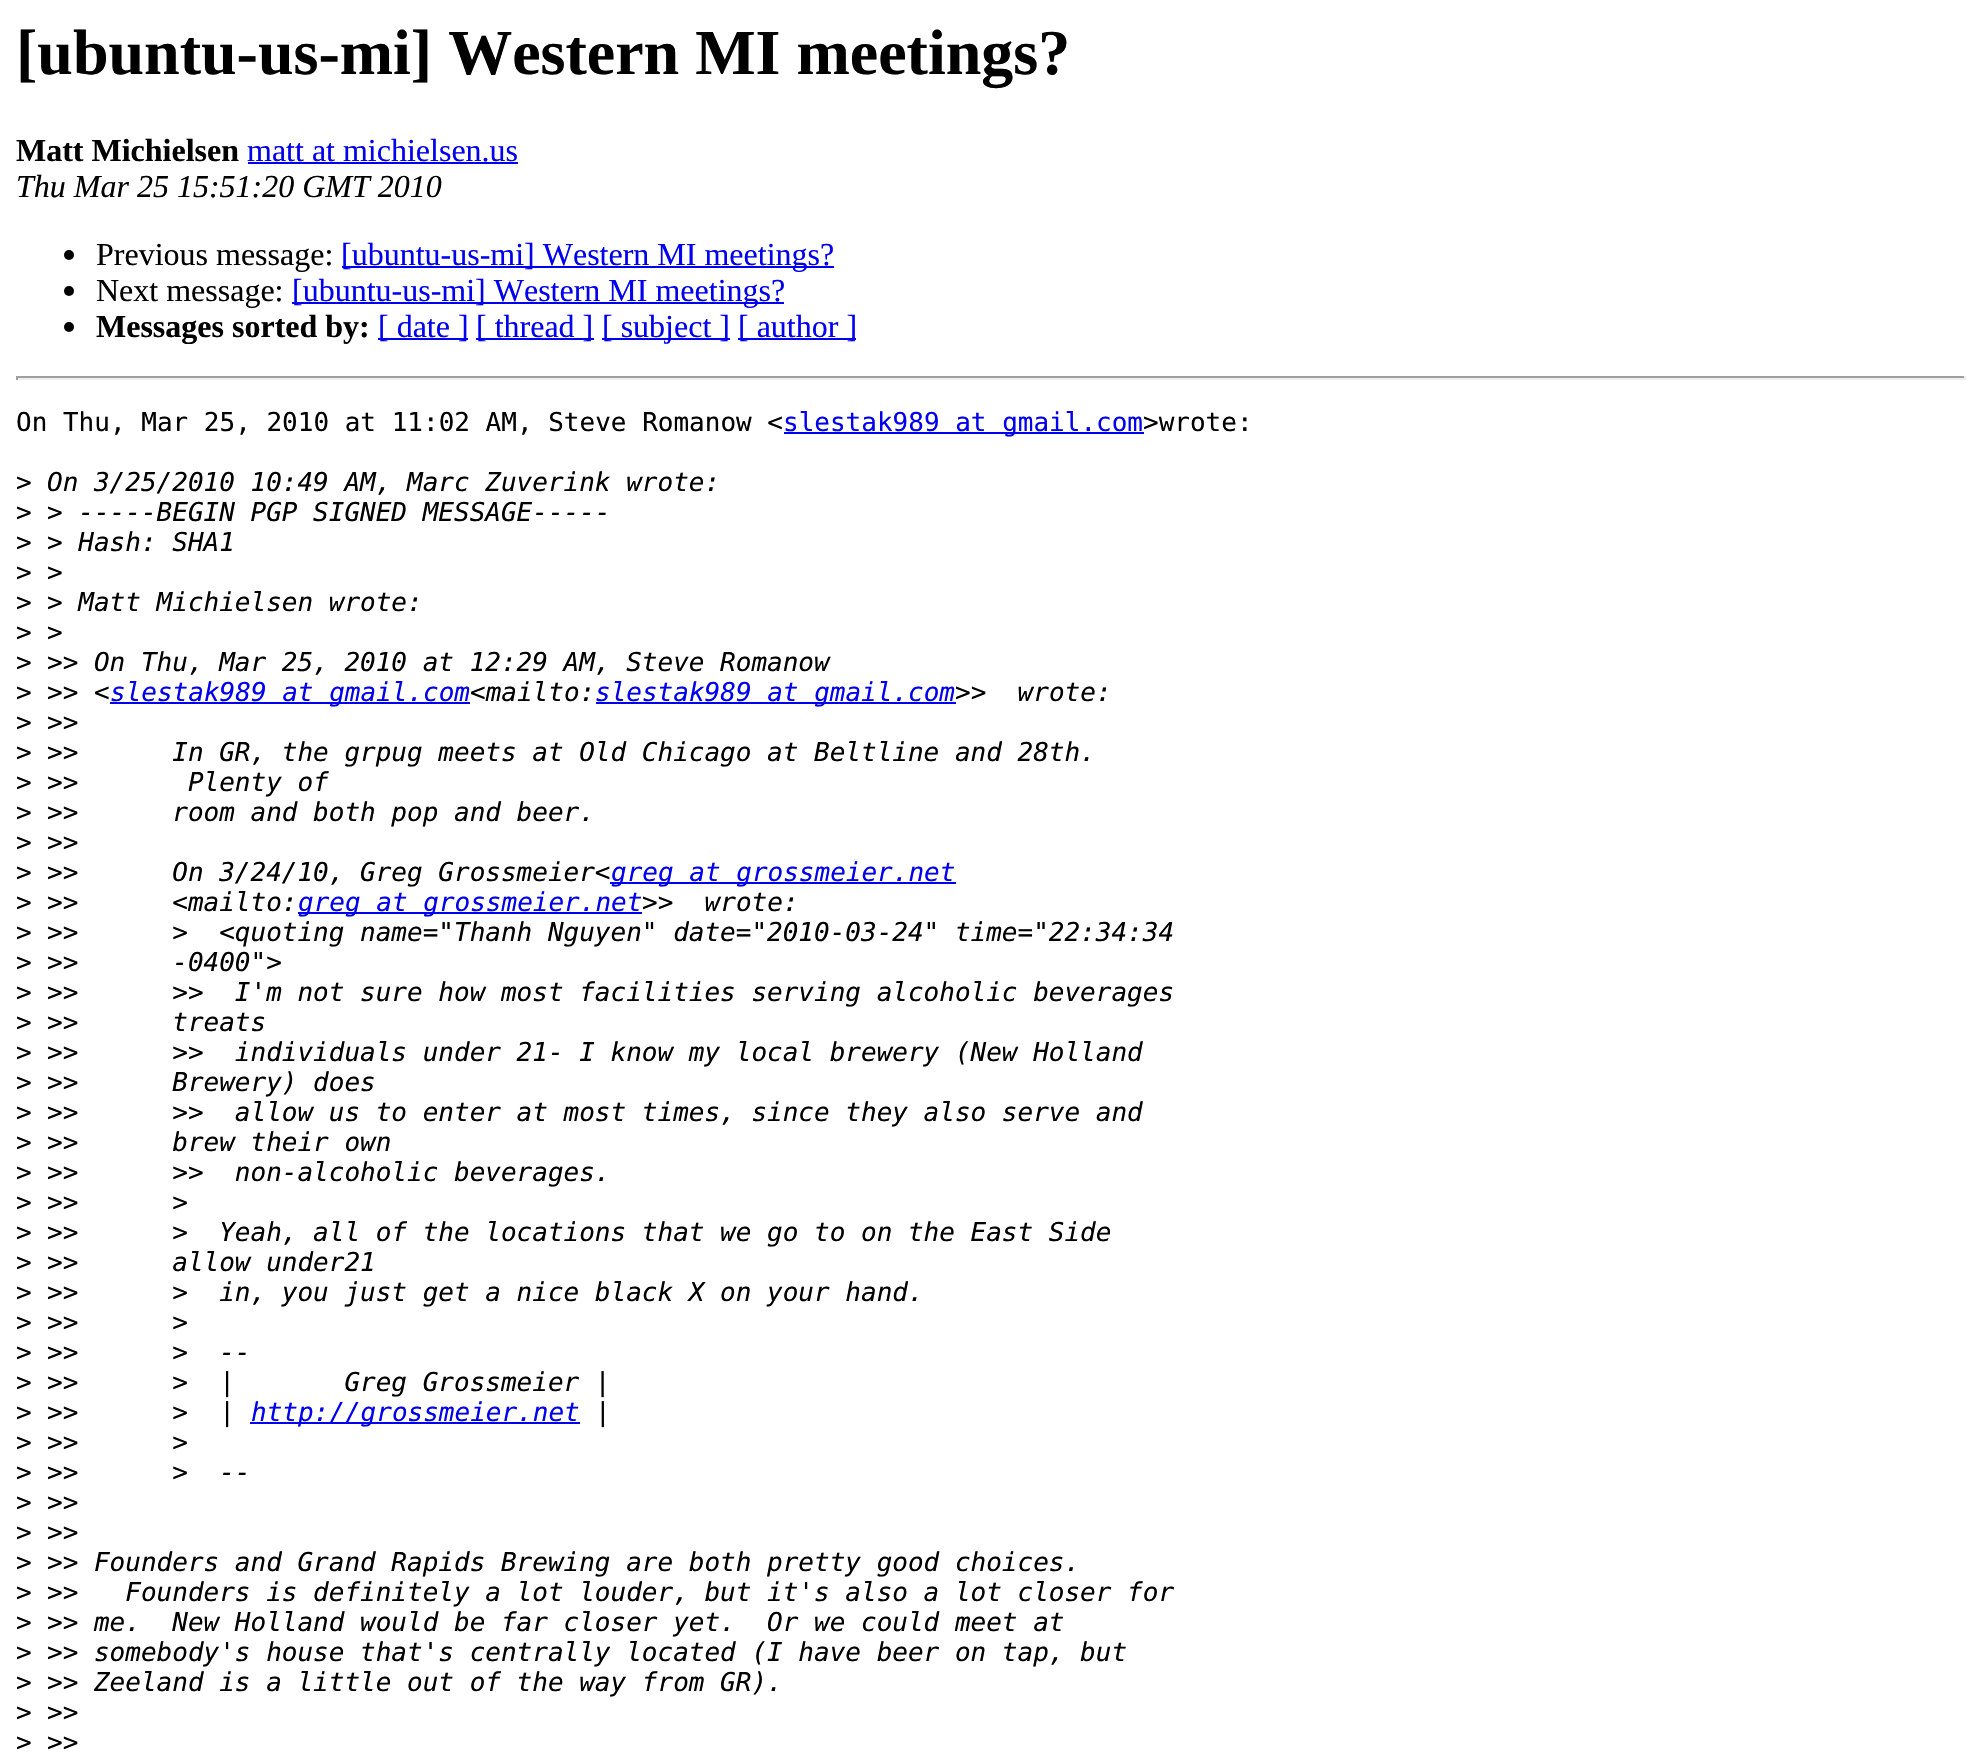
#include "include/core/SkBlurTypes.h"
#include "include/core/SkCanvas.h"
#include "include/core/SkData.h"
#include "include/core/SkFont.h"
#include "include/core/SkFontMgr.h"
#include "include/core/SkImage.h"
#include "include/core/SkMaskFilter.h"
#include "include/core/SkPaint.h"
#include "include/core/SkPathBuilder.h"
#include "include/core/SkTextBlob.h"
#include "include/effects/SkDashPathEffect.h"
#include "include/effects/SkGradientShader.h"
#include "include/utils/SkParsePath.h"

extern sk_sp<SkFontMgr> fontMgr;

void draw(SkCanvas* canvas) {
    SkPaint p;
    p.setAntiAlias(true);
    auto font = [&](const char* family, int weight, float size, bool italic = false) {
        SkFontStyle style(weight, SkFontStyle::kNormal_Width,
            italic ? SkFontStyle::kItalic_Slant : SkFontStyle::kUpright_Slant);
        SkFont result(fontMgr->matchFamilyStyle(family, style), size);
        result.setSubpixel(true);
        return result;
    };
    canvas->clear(0xFFFFFFFF);
    auto font1 = font("Liberation Serif", 700, 64);
    p.setColor(0xFF000000);
    canvas->drawString("[ubuntu-us-mi] Western MI meetings?", 16, 74, font1, p);
    auto font2 = font("Liberation Serif", 700, 32);
    canvas->drawString("Matt Michielsen", 16, 161, font2, p);
    auto font3 = font("Liberation Serif", 400, 32);
    p.setColor(0xFF0000EE);
    canvas->drawString("matt at michielsen.us", 247, 161, font3, p);
    canvas->drawRect(SkRect::MakeLTRB(248, 162, 518, 164), p);
    auto font4 = font("Liberation Serif", 400, 32, true);
    p.setColor(0xFF000000);
    canvas->drawString("Thu Mar 25 15:51:20 GMT 2010", 16, 197, font4, p);
    canvas->drawCircle(69, 255, 5, p);
    canvas->drawString("Previous message:", 96, 265, font3, p);
    p.setColor(0xFF0000EE);
    canvas->drawRect(SkRect::MakeLTRB(342, 266, 834, 268), p);
    canvas->drawString("[ubuntu-us-mi] Western MI meetings?", 341, 265, font3, p);
    p.setColor(0xFF000000);
    canvas->drawCircle(69, 291, 5, p);
    canvas->drawString("Next message:", 96, 301, font3, p);
    p.setColor(0xFF0000EE);
    canvas->drawRect(SkRect::MakeLTRB(292, 302, 784, 304), p);
    canvas->drawString("[ubuntu-us-mi] Western MI meetings?", 292, 301, font3, p);
    p.setColor(0xFF000000);
    canvas->drawCircle(69, 327, 5, p);
    canvas->drawString("Messages sorted by:", 96, 337, font2, p);
    p.setColor(0xFF0000EE);
    canvas->drawRect(SkRect::MakeLTRB(378, 338, 468, 340), p);
    canvas->drawString("[ date ]", 378, 337, font3, p);
    canvas->drawRect(SkRect::MakeLTRB(476, 338, 594, 340), p);
    canvas->drawString("[ thread ]", 476, 337, font3, p);
    canvas->drawRect(SkRect::MakeLTRB(602, 338, 730, 340), p);
    canvas->drawString("[ subject ]", 602, 337, font3, p);
    canvas->drawRect(SkRect::MakeLTRB(738, 338, 856, 340), p);
    canvas->drawString("[ author ]", 738, 337, font3, p);
    {
        const struct { float l, t, r, b; SkColor color; } items[] = {
            {16, 376, 1966, 378, 0xFF9F9F9F},
            {1964, 376, 1966, 380, 0xFFEEEEEE},
            {16, 378, 1966, 380, 0xFFEEEEEE},
            {16, 376, 18, 380, 0xFF9F9F9F},
        };
        for (auto [l, t, r, b, color] : items) {
            p.setColor(color);
            canvas->drawRect(SkRect::MakeLTRB(l, t, r, b), p);
        }
    }
    auto font5 = font("DejaVu Sans Mono", 400, 26);
    p.setColor(0xFF000000);
    canvas->drawString("On Thu, Mar 25, 2010 at 11:02 AM, Steve Romanow <", 16, 431, font5, p);
    p.setColor(0xFF0000EE);
    canvas->drawRect(SkRect::MakeLTRB(784, 432, 1144, 434), p);
    canvas->drawString("slestak989 at gmail.com", 783, 431, font5, p);
    p.setColor(0xFF000000);
    canvas->drawString(">wrote:", 1143, 431, font5, p);
    canvas->drawString(">", 16, 491, font5, p);
    auto font6 = font("DejaVu Sans Mono", 400, 26, true);
    canvas->drawString("On 3/25/2010 10:49 AM, Marc Zuverink wrote:", 47, 491, font6, p);
    canvas->drawString(">", 16, 521, font5, p);
    canvas->drawString("> -----BEGIN PGP SIGNED MESSAGE-----", 47, 521, font6, p);
    canvas->drawString(">", 16, 551, font5, p);
    canvas->drawString("> Hash: SHA1", 47, 551, font6, p);
    canvas->drawString(">", 16, 581, font5, p);
    canvas->drawString(">", 47, 581, font6, p);
    canvas->drawString(">", 16, 611, font5, p);
    canvas->drawString("> Matt Michielsen wrote:", 47, 611, font6, p);
    canvas->drawString(">", 16, 641, font5, p);
    canvas->drawString(">", 47, 641, font6, p);
    canvas->drawString(">", 16, 671, font5, p);
    canvas->drawString(">> On Thu, Mar 25, 2010 at 12:29 AM, Steve Romanow", 47, 671, font6, p);
    canvas->drawString(">", 16, 701, font5, p);
    canvas->drawString(">> <", 47, 701, font6, p);
    p.setColor(0xFF0000EE);
    canvas->drawRect(SkRect::MakeLTRB(110, 702, 470, 704), p);
    canvas->drawString("slestak989 at gmail.com", 110, 701, font6, p);
    p.setColor(0xFF000000);
    canvas->drawString("<mailto:", 470, 701, font6, p);
    p.setColor(0xFF0000EE);
    canvas->drawRect(SkRect::MakeLTRB(596, 702, 956, 704), p);
    canvas->drawString("slestak989 at gmail.com", 595, 701, font6, p);
    p.setColor(0xFF000000);
    canvas->drawString(">>  wrote:", 955, 701, font6, p);
    canvas->drawString(">", 16, 731, font5, p);
    canvas->drawString(">>", 47, 731, font6, p);
    canvas->drawString(">", 16, 761, font5, p);
    canvas->drawString(">>      In GR, the grpug meets at Old Chicago at Beltline and 28th.", 47, 761, font6, p);
    canvas->drawString(">", 16, 791, font5, p);
    canvas->drawString(">>       Plenty of", 47, 791, font6, p);
    canvas->drawString(">", 16, 821, font5, p);
    canvas->drawString(">>      room and both pop and beer.", 47, 821, font6, p);
    canvas->drawString(">", 16, 851, font5, p);
    canvas->drawString(">>", 47, 851, font6, p);
    canvas->drawString(">", 16, 881, font5, p);
    canvas->drawString(">>      On 3/24/10, Greg Grossmeier<", 47, 881, font6, p);
    p.setColor(0xFF0000EE);
    canvas->drawRect(SkRect::MakeLTRB(610, 882, 956, 884), p);
    canvas->drawString("greg at grossmeier.net", 611, 881, font6, p);
    p.setColor(0xFF000000);
    canvas->drawString(">", 16, 911, font5, p);
    canvas->drawString(">>      <mailto:", 47, 911, font6, p);
    p.setColor(0xFF0000EE);
    canvas->drawRect(SkRect::MakeLTRB(298, 912, 642, 914), p);
    canvas->drawString("greg at grossmeier.net", 298, 911, font6, p);
    p.setColor(0xFF000000);
    canvas->drawString(">>  wrote:", 642, 911, font6, p);
    canvas->drawString(">", 16, 941, font5, p);
    canvas->drawString(">>      >  <quoting name=\"Thanh Nguyen\" date=\"2010-03-24\" time=\"22:34:34", 47, 941, font6, p);
    canvas->drawString(">", 16, 971, font5, p);
    canvas->drawString(">>      -0400\">", 47, 971, font6, p);
    canvas->drawString(">", 16, 1001, font5, p);
    canvas->drawString(">>      >>  I'm not sure how most facilities serving alcoholic beverages", 47, 1001, font6, p);
    canvas->drawString(">", 16, 1031, font5, p);
    canvas->drawString(">>      treats", 47, 1031, font6, p);
    canvas->drawString(">", 16, 1061, font5, p);
    canvas->drawString(">>      >>  individuals under 21- I know my local brewery (New Holland", 47, 1061, font6, p);
    canvas->drawString(">", 16, 1091, font5, p);
    canvas->drawString(">>      Brewery) does", 47, 1091, font6, p);
    canvas->drawString(">", 16, 1121, font5, p);
    canvas->drawString(">>      >>  allow us to enter at most times, since they also serve and", 47, 1121, font6, p);
    canvas->drawString(">", 16, 1151, font5, p);
    canvas->drawString(">>      brew their own", 47, 1151, font6, p);
    canvas->drawString(">", 16, 1181, font5, p);
    canvas->drawString(">>      >>  non-alcoholic beverages.", 47, 1181, font6, p);
    canvas->drawString(">", 16, 1211, font5, p);
    canvas->drawString(">>      >", 47, 1211, font6, p);
    canvas->drawString(">", 16, 1241, font5, p);
    canvas->drawString(">>      >  Yeah, all of the locations that we go to on the East Side", 47, 1241, font6, p);
    canvas->drawString(">", 16, 1271, font5, p);
    canvas->drawString(">>      allow under21", 47, 1271, font6, p);
    canvas->drawString(">", 16, 1301, font5, p);
    canvas->drawString(">>      >  in, you just get a nice black X on your hand.", 47, 1301, font6, p);
    canvas->drawString(">", 16, 1331, font5, p);
    canvas->drawString(">>      >", 47, 1331, font6, p);
    canvas->drawString(">", 16, 1361, font5, p);
    canvas->drawString(">>      >  --", 47, 1361, font6, p);
    canvas->drawString(">", 16, 1391, font5, p);
    canvas->drawString(">>      >  |       Greg Grossmeier |", 47, 1391, font6, p);
    canvas->drawString(">", 16, 1421, font5, p);
    canvas->drawString(">>      >  |", 47, 1421, font6, p);
    p.setColor(0xFF0000EE);
    canvas->drawRect(SkRect::MakeLTRB(250, 1422, 580, 1424), p);
    canvas->drawString("http://grossmeier.net", 251, 1421, font6, p);
    p.setColor(0xFF000000);
    canvas->drawString("|", 595, 1421, font6, p);
    canvas->drawString(">", 16, 1451, font5, p);
    canvas->drawString(">>      >", 47, 1451, font6, p);
    canvas->drawString(">", 16, 1481, font5, p);
    canvas->drawString(">>      >  --", 47, 1481, font6, p);
    canvas->drawString(">", 16, 1511, font5, p);
    canvas->drawString(">>", 47, 1511, font6, p);
    canvas->drawString(">", 16, 1541, font5, p);
    canvas->drawString(">>", 47, 1541, font6, p);
    canvas->drawString(">", 16, 1571, font5, p);
    canvas->drawString(">> Founders and Grand Rapids Brewing are both pretty good choices.", 47, 1571, font6, p);
    canvas->drawString(">", 16, 1601, font5, p);
    canvas->drawString(">>   Founders is definitely a lot louder, but it's also a lot closer for", 47, 1601, font6, p);
    canvas->drawString(">", 16, 1631, font5, p);
    canvas->drawString(">> me.  New Holland would be far closer yet.  Or we could meet at", 47, 1631, font6, p);
    canvas->drawString(">", 16, 1661, font5, p);
    canvas->drawString(">> somebody's house that's centrally located (I have beer on tap, but", 47, 1661, font6, p);
    canvas->drawString(">", 16, 1691, font5, p);
    canvas->drawString(">> Zeeland is a little out of the way from GR).", 47, 1691, font6, p);
    canvas->drawString(">", 16, 1721, font5, p);
    canvas->drawString(">>", 47, 1721, font6, p);
    canvas->drawString(">", 16, 1751, font5, p);
    canvas->drawString(">>", 47, 1751, font6, p);
}
